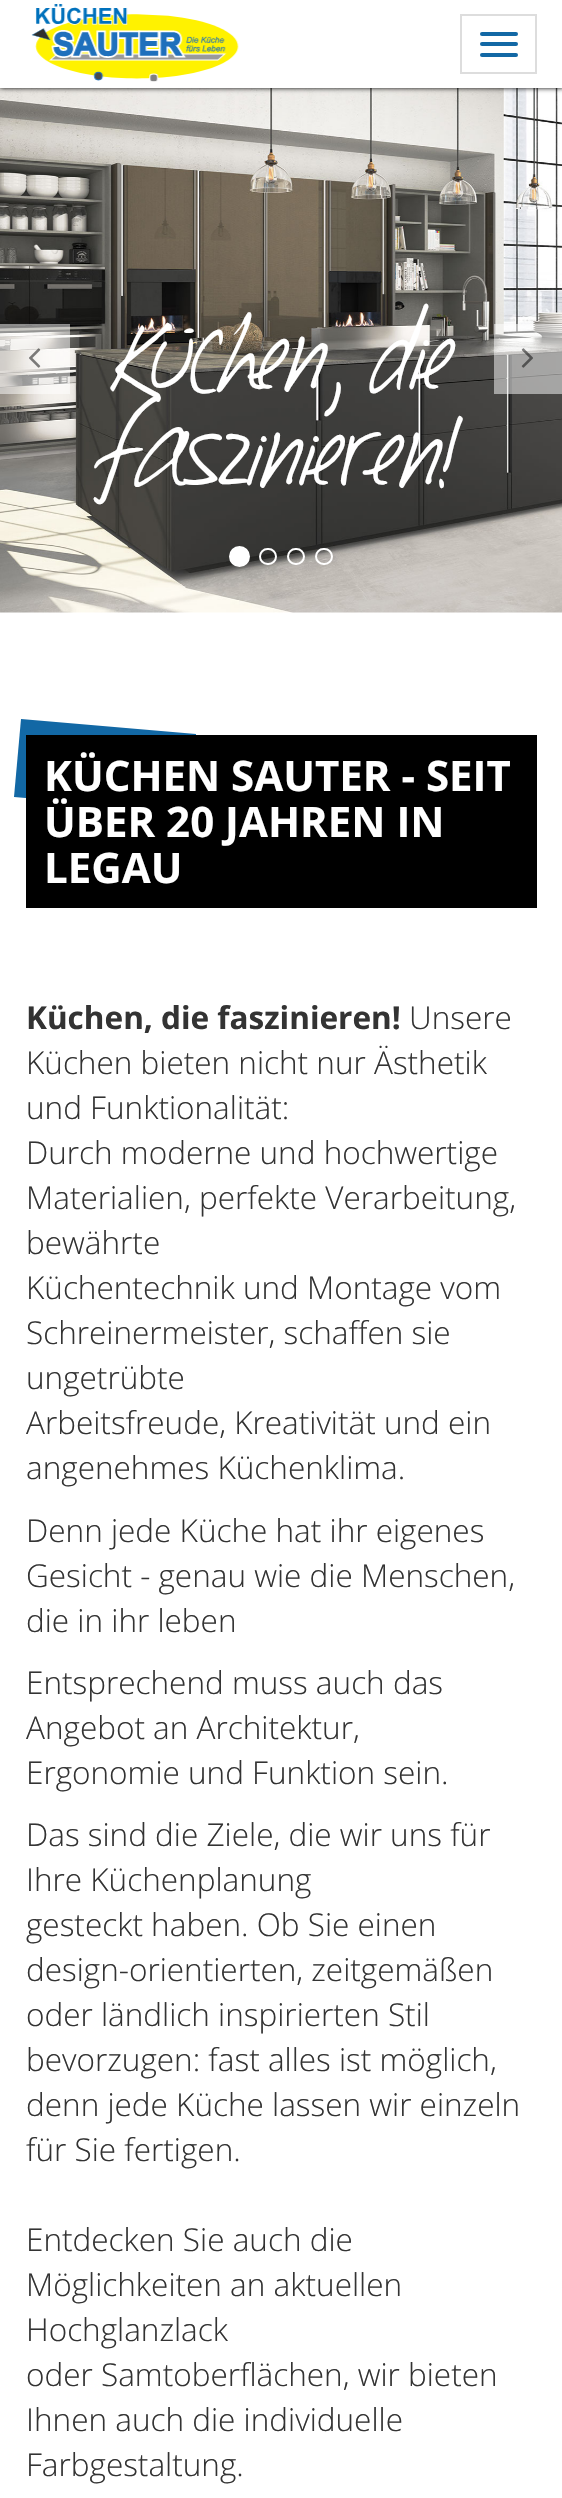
#include "include/core/SkBlurTypes.h"
#include "include/core/SkCanvas.h"
#include "include/core/SkData.h"
#include "include/core/SkFont.h"
#include "include/core/SkFontMgr.h"
#include "include/core/SkImage.h"
#include "include/core/SkMaskFilter.h"
#include "include/core/SkPaint.h"
#include "include/core/SkPathBuilder.h"
#include "include/core/SkTextBlob.h"
#include "include/effects/SkDashPathEffect.h"
#include "include/effects/SkGradientShader.h"
#include "include/utils/SkParsePath.h"

extern sk_sp<SkFontMgr> fontMgr;

void draw(SkCanvas* canvas) {
    SkPaint p;
    p.setAntiAlias(true);
    auto font = [&](const char* family, int weight, float size, bool italic = false) {
        SkFontStyle style(weight, SkFontStyle::kNormal_Width,
            italic ? SkFontStyle::kItalic_Slant : SkFontStyle::kUpright_Slant);
        SkFont result(fontMgr->matchFamilyStyle(family, style), size);
        result.setSubpixel(true);
        return result;
    };
    auto drawPhoto = [&](const char* path, float l, float t, float r, float b) {
        auto image = SkImages::DeferredFromEncodedData(SkData::MakeFromFileName(path));
        canvas->drawImageRect(image, SkRect::MakeLTRB(l, t, r, b), SkSamplingOptions());
    };
    canvas->clear(0xFFFFFFFF);
    drawPhoto("media/3.png", 0, 88, 562, 613);
    p.setColor(0xFF000000);
    p.setMaskFilter(SkMaskFilter::MakeBlur(kNormal_SkBlurStyle, 2.5f));
    canvas->drawRect(SkRect::MakeLTRB(0, 0, 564, 88), p);
    p.setMaskFilter(nullptr);
    p.setColor(0xFFFFFFFF);
    canvas->drawRect(SkRect::MakeLTRB(0, 0, 562, 88), p);
    drawPhoto("media/1.png", 31, 4, 239, 82);
    p.setStyle(SkPaint::kStroke_Style);
    p.setStrokeWidth(2);
    p.setColor(0xFFDDDDDD);
    canvas->drawRect(SkRect::MakeLTRB(461, 15, 536, 73), p);
    p.setStyle(SkPaint::kFill_Style);
    p.setColor(0xFF1268A5);
    canvas->drawRoundRect(SkRect::MakeLTRB(480, 32, 518, 36), 2, 2, p);
    canvas->drawRoundRect(SkRect::MakeLTRB(480, 42, 518, 46), 2, 2, p);
    canvas->drawRoundRect(SkRect::MakeLTRB(480, 53, 518, 57), 2, 2, p);
    p.setColor(0x80FFFFFF);
    canvas->drawRect(SkRect::MakeLTRB(0, 324, 70, 394), p);
    drawPhoto("media/2.png", 29, 348, 41, 368);
    auto font1 = font("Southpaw", 400, 87.5f);
    p.setColor(0xFFFFFFFF);
    canvas->drawString("Küchen, die", 112, 387, font1, p);
    canvas->drawString("faszinieren!", 104, 483, font1, p);
    p.setColor(0x80FFFFFF);
    canvas->drawRect(SkRect::MakeLTRB(494, 324, 562, 394), p);
    drawPhoto("media/4.png", 521, 348, 533, 368);
    p.setColor(0xFFFFFFFF);
    canvas->drawCircle(239.5f, 556.5f, 9.5f, p);
    p.setStyle(SkPaint::kStroke_Style);
    canvas->drawCircle(239.5f, 556.5f, 9.5f, p);
    canvas->drawRoundRect(SkRect::MakeLTRB(260, 549, 276, 564), 7.5f, 7.5f, p);
    canvas->drawRoundRect(SkRect::MakeLTRB(288, 549, 304, 564), 7.5f, 7.5f, p);
    canvas->drawRoundRect(SkRect::MakeLTRB(316, 549, 332, 564), 7.5f, 7.5f, p);
    p.setStyle(SkPaint::kFill_Style);
    p.setColor(0xFF1268A5);
    canvas->drawPath(SkPathBuilder().moveTo(21, 719).lineTo(196, 734).lineTo(189, 812).lineTo(14, 797).close().detach(), p);
    p.setColor(0xFF000000);
    canvas->drawRect(SkRect::MakeLTRB(26, 735, 537, 908), p);
    auto font2 = font("Open Sans", 700, 42);
    p.setColor(0xFFFFFFFF);
    {
        const struct { const char* s; float x, y; } items[] = {
            {"KÜCHEN SAUTER - SEIT", 44, 791},
            {"ÜBER 20 JAHREN IN", 44, 837},
            {"LEGAU", 44, 883},
        };
        for (auto [s, x, y] : items) {
            canvas->drawString(s, x, y, font2, p);
        }
    }
    auto font3 = font("Open Sans", 700, 31.5f);
    p.setColor(0xFF333333);
    canvas->drawString("Küchen, die faszinieren!", 26, 1029, font3, p);
    auto font4 = font("Open Sans", 300, 31.5f);
    {
        const struct { const char* s; float x, y; } items[] = {
            {"Unsere", 409, 1029},
            {"Küchen bieten nicht nur Ästhetik", 26, 1074},
            {"und Funktionalität:", 26, 1119},
            {"Durch moderne und hochwertige", 26, 1164},
            {"Materialien, perfekte Verarbeitung,", 26, 1209},
            {"bewährte", 26, 1254},
            {"Küchentechnik und Montage vom", 26, 1299},
            {"Schreinermeister, schaffen sie", 26, 1344},
            {"ungetrübte", 26, 1389},
            {"Arbeitsfreude, Kreativität und ein", 26, 1434},
            {"angenehmes Küchenklima.", 26, 1479},
            {"Denn jede Küche hat ihr eigenes", 26, 1542},
            {"Gesicht - genau wie die Menschen,", 26, 1587},
            {"die in ihr leben", 26, 1632},
            {"Entsprechend muss auch das", 26, 1694},
            {"Angebot an Architektur,", 26, 1739},
            {"Ergonomie und Funktion sein.", 26, 1784},
            {"Das sind die Ziele, die wir uns für", 26, 1846},
            {"Ihre Küchenplanung", 26, 1891},
            {"gesteckt haben. Ob Sie einen", 26, 1936},
            {"design-orientierten, zeitgemäßen", 26, 1981},
            {"oder ländlich inspirierten Stil", 26, 2026},
            {"bevorzugen: fast alles ist möglich,", 26, 2071},
            {"denn jede Küche lassen wir einzeln", 26, 2116},
            {"für Sie fertigen.", 26, 2161},
            {"Entdecken Sie auch die", 26, 2251},
            {"Möglichkeiten an aktuellen", 26, 2296},
            {"Hochglanzlack", 26, 2341},
            {"oder Samtoberflächen, wir bieten", 26, 2386},
            {"Ihnen auch die individuelle", 26, 2431},
            {"Farbgestaltung.", 26, 2476},
        };
        for (auto [s, x, y] : items) {
            canvas->drawString(s, x, y, font4, p);
        }
    }
}
